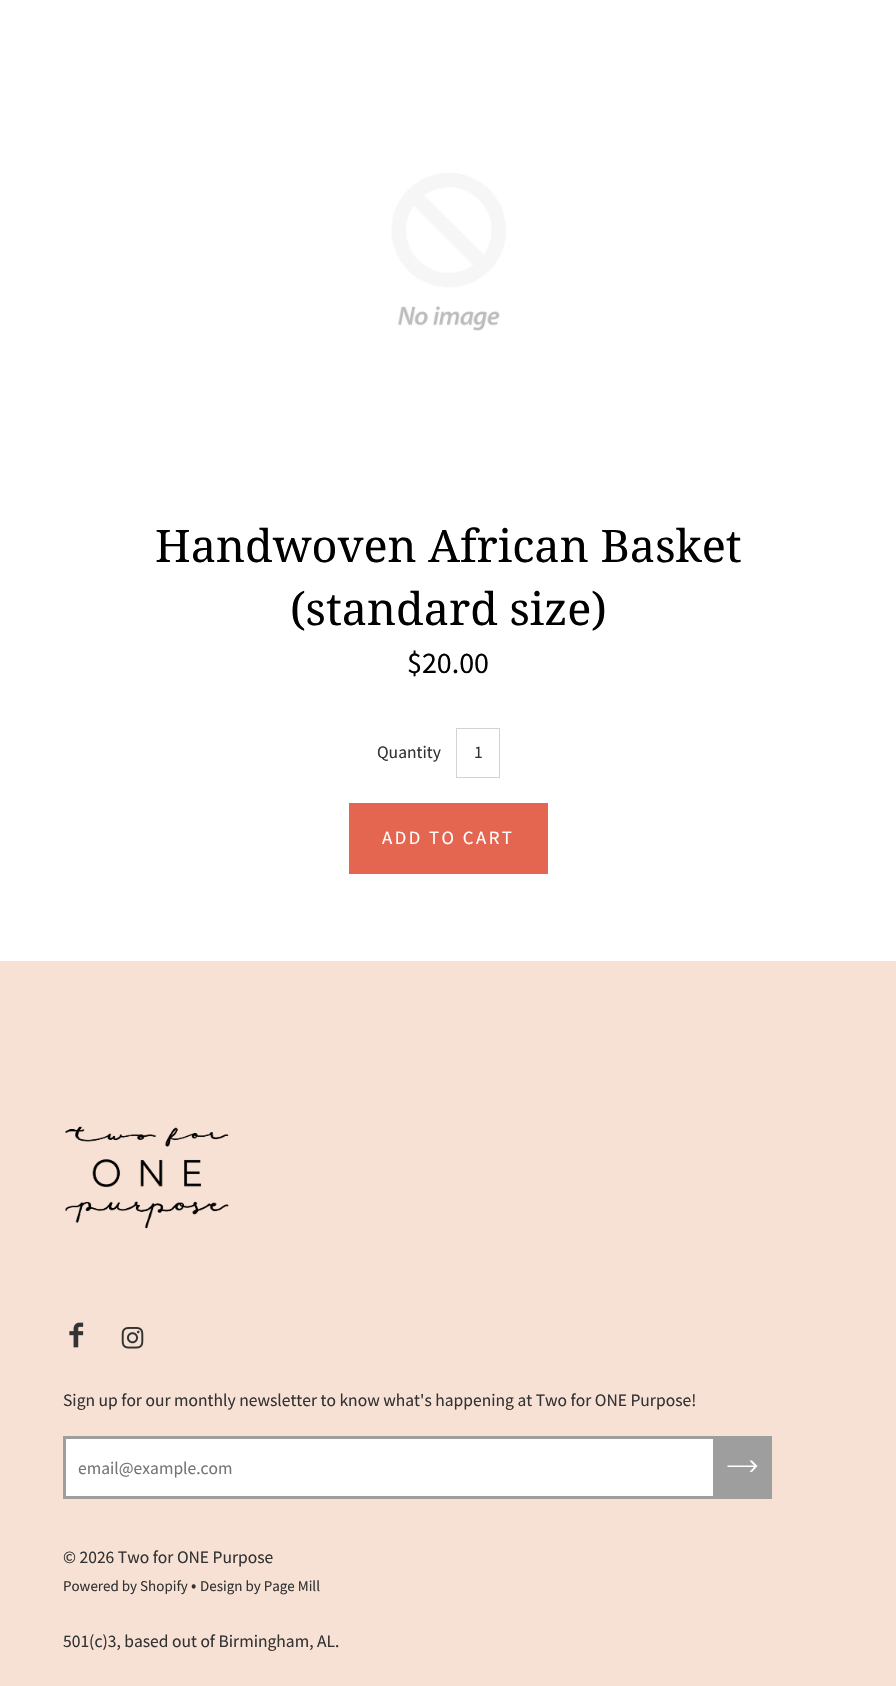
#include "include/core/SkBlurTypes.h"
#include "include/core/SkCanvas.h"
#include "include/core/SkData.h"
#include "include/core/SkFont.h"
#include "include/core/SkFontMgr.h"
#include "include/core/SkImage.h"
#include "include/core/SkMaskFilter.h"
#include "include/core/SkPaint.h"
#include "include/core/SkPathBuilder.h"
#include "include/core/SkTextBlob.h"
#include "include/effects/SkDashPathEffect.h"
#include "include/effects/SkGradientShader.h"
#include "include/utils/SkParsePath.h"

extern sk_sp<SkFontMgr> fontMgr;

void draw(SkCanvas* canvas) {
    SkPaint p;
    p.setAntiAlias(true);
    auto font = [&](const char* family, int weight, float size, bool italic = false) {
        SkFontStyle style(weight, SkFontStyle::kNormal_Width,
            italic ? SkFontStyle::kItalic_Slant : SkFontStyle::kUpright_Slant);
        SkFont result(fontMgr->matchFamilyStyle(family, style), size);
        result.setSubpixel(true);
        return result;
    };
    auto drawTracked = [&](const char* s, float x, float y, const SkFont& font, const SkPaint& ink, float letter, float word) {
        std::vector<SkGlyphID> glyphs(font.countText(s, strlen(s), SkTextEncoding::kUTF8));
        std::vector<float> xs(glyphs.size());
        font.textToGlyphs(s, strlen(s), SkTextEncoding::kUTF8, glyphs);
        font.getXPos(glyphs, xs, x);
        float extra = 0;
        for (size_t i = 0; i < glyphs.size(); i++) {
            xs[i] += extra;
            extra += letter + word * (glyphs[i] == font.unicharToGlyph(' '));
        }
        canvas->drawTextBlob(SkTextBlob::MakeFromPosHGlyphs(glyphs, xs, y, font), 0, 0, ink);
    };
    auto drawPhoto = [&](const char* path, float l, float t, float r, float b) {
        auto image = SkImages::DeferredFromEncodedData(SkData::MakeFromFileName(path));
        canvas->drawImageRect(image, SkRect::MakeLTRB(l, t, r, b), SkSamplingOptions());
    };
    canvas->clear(0xFFFFFFFF);
    drawPhoto("media/1.png", 391, 173, 506, 331);
    auto font1 = font("Droid Serif", 400, 45);
    p.setColor(0xFF000000);
    canvas->drawString("Handwoven African Basket", 155, 562, font1, p);
    canvas->drawString("(standard size)", 290, 625, font1, p);
    auto font2 = font("Source Sans Pro", 400, 30);
    canvas->drawString("$20.00", 407, 673, font2, p);
    auto font3 = font("Source Sans Pro", 400, 17.5f);
    p.setColor(0xFF333333);
    canvas->drawString("Quantity", 377, 758, font3, p);
    p.setStyle(SkPaint::kStroke_Style);
    p.setStrokeWidth(1);
    p.setColor(0xFFD3D3D3);
    canvas->drawRect(SkRect::MakeLTRB(456.5f, 728.5f, 499.5f, 777.5f), p);
    p.setStyle(SkPaint::kFill_Style);
    p.setColor(0xFF333333);
    canvas->drawString("1", 474, 758, font3, p);
    p.setColor(0xFFE46650);
    canvas->drawRect(SkRect::MakeLTRB(349, 803, 548, 874), p);
    auto font4 = font("Source Sans Pro", 400, 18.75f);
    p.setColor(0xFFFFFFFF);
    drawTracked("ADD TO CART", 382, 844, font4, p, 2.5f, 0);
    p.setColor(0xFFF7E1D4);
    canvas->drawRect(SkRect::MakeLTRB(0, 961, 896, 1686), p);
    drawPhoto("media/2.png", 65, 1126, 229, 1229);
    drawPhoto("media/3.png", 69, 1322, 84, 1348);
    drawPhoto("media/4.png", 121, 1327, 144, 1349);
    p.setColor(0xFF333333);
    canvas->drawString("Sign up for our monthly newsletter to know what's happening at Two for ONE Purpose!", 63, 1406, font3, p);
    p.setColor(0xFFFFFFFF);
    canvas->drawRect(SkRect::MakeLTRB(64.5f, 1437.5f, 714.5f, 1497.5f), p);
    p.setStyle(SkPaint::kStroke_Style);
    p.setStrokeWidth(3);
    p.setColor(0xFF9E9E9E);
    canvas->drawRect(SkRect::MakeLTRB(64.5f, 1437.5f, 714.5f, 1497.5f), p);
    p.setStyle(SkPaint::kFill_Style);
    p.setColor(0xFF757575);
    canvas->drawString("email@example.com", 78, 1474, font3, p);
    p.setColor(0xFF9E9E9E);
    canvas->drawRect(SkRect::MakeLTRB(716, 1436, 772, 1499), p);
    p.setColor(0xFFFFFFFF);
    canvas->drawPath(SkPathBuilder().moveTo(727.5f, 1467).lineTo(727.5f, 1465.5f).lineTo(754, 1465.5f).lineTo(749.5f, 1460.5f).lineTo(752, 1460.5f).lineTo(757.5f, 1466).lineTo(752, 1472).lineTo(749.5f, 1472).lineTo(754, 1467).close().detach(), p);
    p.setColor(0xFF333333);
    canvas->drawString("© 2026 Two for ONE Purpose", 63, 1563, font3, p);
    auto font5 = font("Source Sans Pro", 400, 15);
    canvas->drawString("Powered by Shopify", 63, 1591, font5, p);
    canvas->drawString("•", 191, 1591, font3, p);
    canvas->drawString("Design by Page Mill", 200, 1591, font5, p);
    canvas->drawString("501(c)3, based out of Birmingham, AL.", 63, 1647, font3, p);
}
